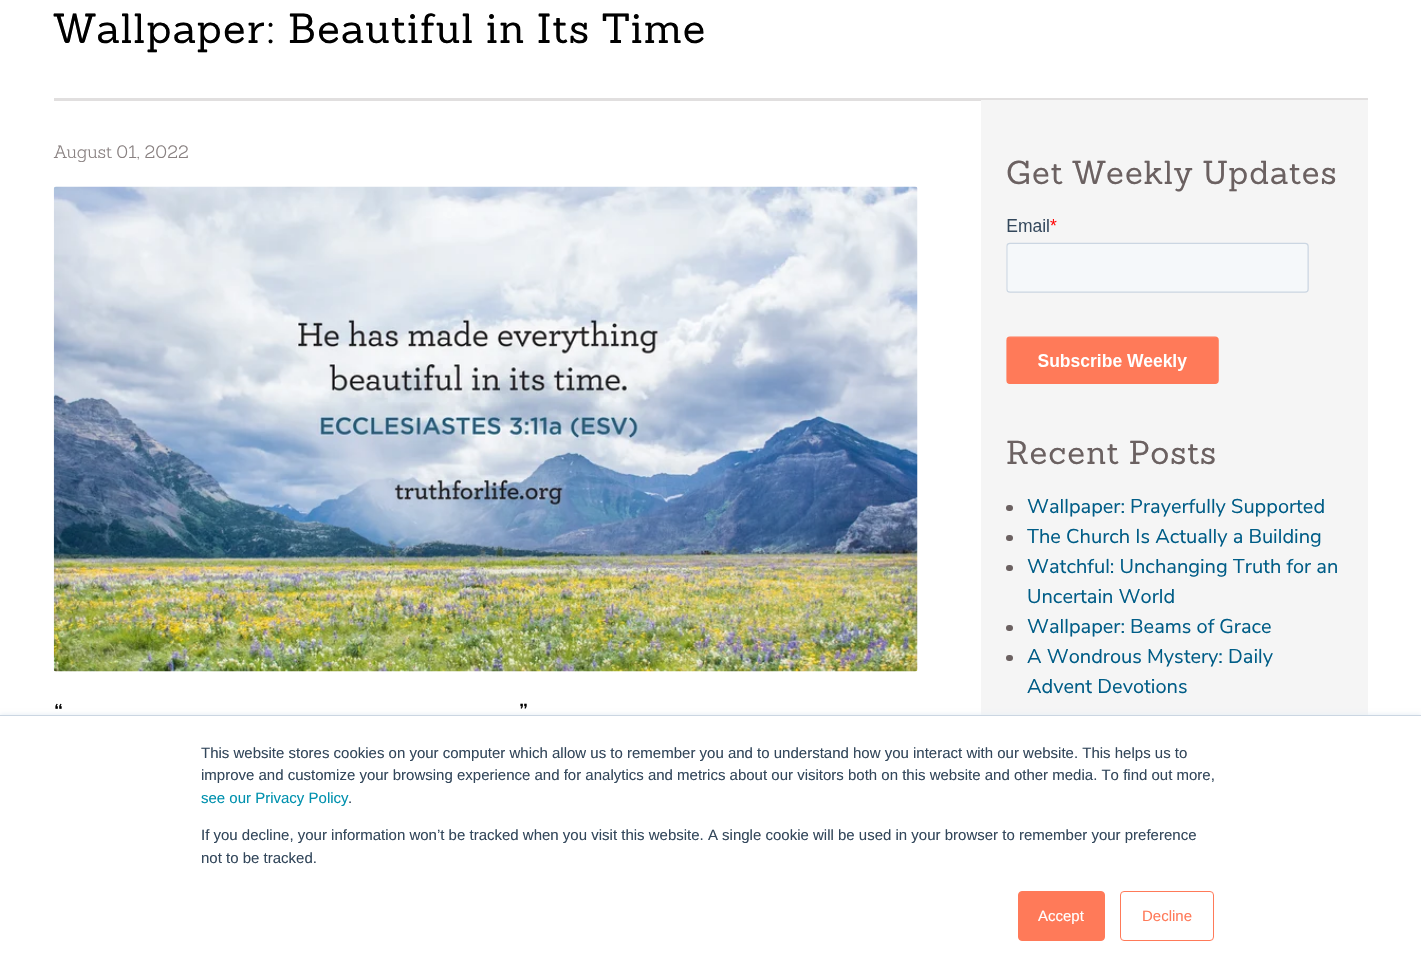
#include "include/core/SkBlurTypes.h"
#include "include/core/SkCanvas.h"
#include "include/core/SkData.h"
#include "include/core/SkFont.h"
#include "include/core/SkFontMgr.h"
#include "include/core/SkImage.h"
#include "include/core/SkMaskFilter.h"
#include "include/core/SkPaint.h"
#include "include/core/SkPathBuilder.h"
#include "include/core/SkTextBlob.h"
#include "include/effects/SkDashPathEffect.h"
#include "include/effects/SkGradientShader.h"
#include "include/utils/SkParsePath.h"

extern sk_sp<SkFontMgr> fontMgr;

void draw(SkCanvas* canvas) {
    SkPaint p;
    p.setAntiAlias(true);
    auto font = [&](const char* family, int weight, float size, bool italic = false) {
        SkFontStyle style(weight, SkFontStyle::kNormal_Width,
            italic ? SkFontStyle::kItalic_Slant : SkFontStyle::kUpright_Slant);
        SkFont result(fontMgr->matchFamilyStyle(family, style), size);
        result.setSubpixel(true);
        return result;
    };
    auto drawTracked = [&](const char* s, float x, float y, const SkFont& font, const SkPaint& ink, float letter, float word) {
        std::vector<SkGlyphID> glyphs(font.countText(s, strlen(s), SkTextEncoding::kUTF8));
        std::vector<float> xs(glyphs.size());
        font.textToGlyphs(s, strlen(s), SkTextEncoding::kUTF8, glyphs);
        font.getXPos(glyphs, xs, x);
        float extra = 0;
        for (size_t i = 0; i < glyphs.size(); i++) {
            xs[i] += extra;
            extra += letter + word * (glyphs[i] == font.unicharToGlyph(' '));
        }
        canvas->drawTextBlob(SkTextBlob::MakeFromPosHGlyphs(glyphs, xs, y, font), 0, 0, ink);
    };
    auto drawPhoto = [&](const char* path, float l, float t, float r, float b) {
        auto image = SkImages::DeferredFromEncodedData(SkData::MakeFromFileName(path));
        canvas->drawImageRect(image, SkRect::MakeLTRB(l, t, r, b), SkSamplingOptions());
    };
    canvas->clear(0xFFFFFFFF);
    auto font1 = font("Sanchez", 400, 41.25f);
    p.setColor(0xFF000000);
    drawTracked("Wallpaper: Beautiful in Its Time", 54, 43, font1, p, 1.25f, 0);
    p.setColor(0xFFE1DFDF);
    canvas->drawRect(SkRect::MakeLTRB(54, 98, 1368, 101), p);
    auto font2 = font("Sanchez", 300, 17.5f);
    p.setColor(0xFF898181);
    canvas->drawString("August 01, 2022", 54, 158, font2, p);
    drawPhoto("media/1.png", 53, 186, 918, 672);
    auto font3 = font("Nunito Sans", 400, 23);
    p.setColor(0xFF000000);
    canvas->drawString("“", 54, 720, font3, p);
    canvas->drawString("”", 519, 720, font3, p);
    p.setColor(0xFFF5F5F5);
    canvas->drawRect(SkRect::MakeLTRB(981, 100, 1368, 715), p);
    auto font4 = font("Sanchez", 400, 32.5f);
    p.setColor(0xFF6B6161);
    drawTracked("Get Weekly Updates", 1006, 184, font4, p, 1, 0);
    drawPhoto("media/2.png", 1006, 219, 1309, 384);
    drawTracked("Recent Posts", 1006, 464, font4, p, 1, 0);
    canvas->drawRoundRect(SkRect::MakeLTRB(1006, 505, 1013, 511), 3, 3, p);
    auto font5 = font("Nunito Sans", 400, 20);
    p.setColor(0xFF005D87);
    canvas->drawString("Wallpaper: Prayerfully Supported", 1027, 513, font5, p);
    p.setColor(0xFF6B6161);
    canvas->drawRoundRect(SkRect::MakeLTRB(1006, 535, 1013, 541), 3, 3, p);
    p.setColor(0xFF005D87);
    canvas->drawString("The Church Is Actually a Building", 1027, 543, font5, p);
    p.setColor(0xFF6B6161);
    canvas->drawRoundRect(SkRect::MakeLTRB(1006, 565, 1013, 571), 3, 3, p);
    p.setColor(0xFF005D87);
    canvas->drawString("Watchful: Unchanging Truth for an", 1027, 573, font5, p);
    canvas->drawString("Uncertain World", 1027, 603, font5, p);
    p.setColor(0xFF6B6161);
    canvas->drawRoundRect(SkRect::MakeLTRB(1006, 625, 1013, 631), 3, 3, p);
    p.setColor(0xFF005D87);
    canvas->drawString("Wallpaper: Beams of Grace", 1027, 633, font5, p);
    p.setColor(0xFF6B6161);
    canvas->drawRoundRect(SkRect::MakeLTRB(1006, 655, 1013, 661), 3, 3, p);
    p.setColor(0xFF005D87);
    canvas->drawString("A Wondrous Mystery: Daily", 1027, 663, font5, p);
    canvas->drawString("Advent Devotions", 1027, 693, font5, p);
    p.setColor(0xFFEAF0F6);
    p.setMaskFilter(SkMaskFilter::MakeBlur(kNormal_SkBlurStyle, 2));
    canvas->drawRect(SkRect::MakeLTRB(0, 714, 1421, 973), p);
    p.setMaskFilter(nullptr);
    p.setColor(0xFFFFFFFF);
    canvas->drawRect(SkRect::MakeLTRB(0, 716, 1421, 973), p);
    p.setColor(0xFFCBD6E2);
    canvas->drawRect(SkRect::MakeLTRB(0, 715, 1421, 716), p);
    auto font6 = font("Liberation Sans", 400, 15);
    p.setColor(0xFF33475B);
    canvas->drawString("This website stores cookies on your computer which allow us to remember you and to understand how you interact with our website. This helps us to", 201, 758, font6, p);
    canvas->drawString("improve and customize your browsing experience and for analytics and metrics about our visitors both on this website and other media. To find out more,", 201, 780, font6, p);
    p.setColor(0xFF0091AE);
    canvas->drawString("see our Privacy Policy", 201, 803, font6, p);
    p.setColor(0xFF33475B);
    {
        const struct { const char* s; float x, y; } items[] = {
            {".", 348, 803},
            {"If you decline, your information won’t be tracked when you visit this website. A single cookie will be used in your browser to remember your preference", 201, 840},
            {"not to be tracked.", 201, 863},
        };
        for (auto [s, x, y] : items) {
            canvas->drawString(s, x, y, font6, p);
        }
    }
    p.setColor(0xFFFF7A59);
    canvas->drawRoundRect(SkRect::MakeLTRB(1018.5f, 891.5f, 1104.5f, 940.5f), 3.5f, 3.5f, p);
    p.setStyle(SkPaint::kStroke_Style);
    p.setStrokeWidth(1);
    canvas->drawRoundRect(SkRect::MakeLTRB(1018.5f, 891.5f, 1104.5f, 940.5f), 3.5f, 3.5f, p);
    p.setStyle(SkPaint::kFill_Style);
    p.setColor(0xFFFFFFFF);
    canvas->drawString("Accept", 1038, 921, font6, p);
    p.setStyle(SkPaint::kStroke_Style);
    p.setColor(0xFFFF7A59);
    canvas->drawRoundRect(SkRect::MakeLTRB(1120.5f, 891.5f, 1213.5f, 940.5f), 3.5f, 3.5f, p);
    p.setStyle(SkPaint::kFill_Style);
    canvas->drawString("Decline", 1142, 921, font6, p);
}
